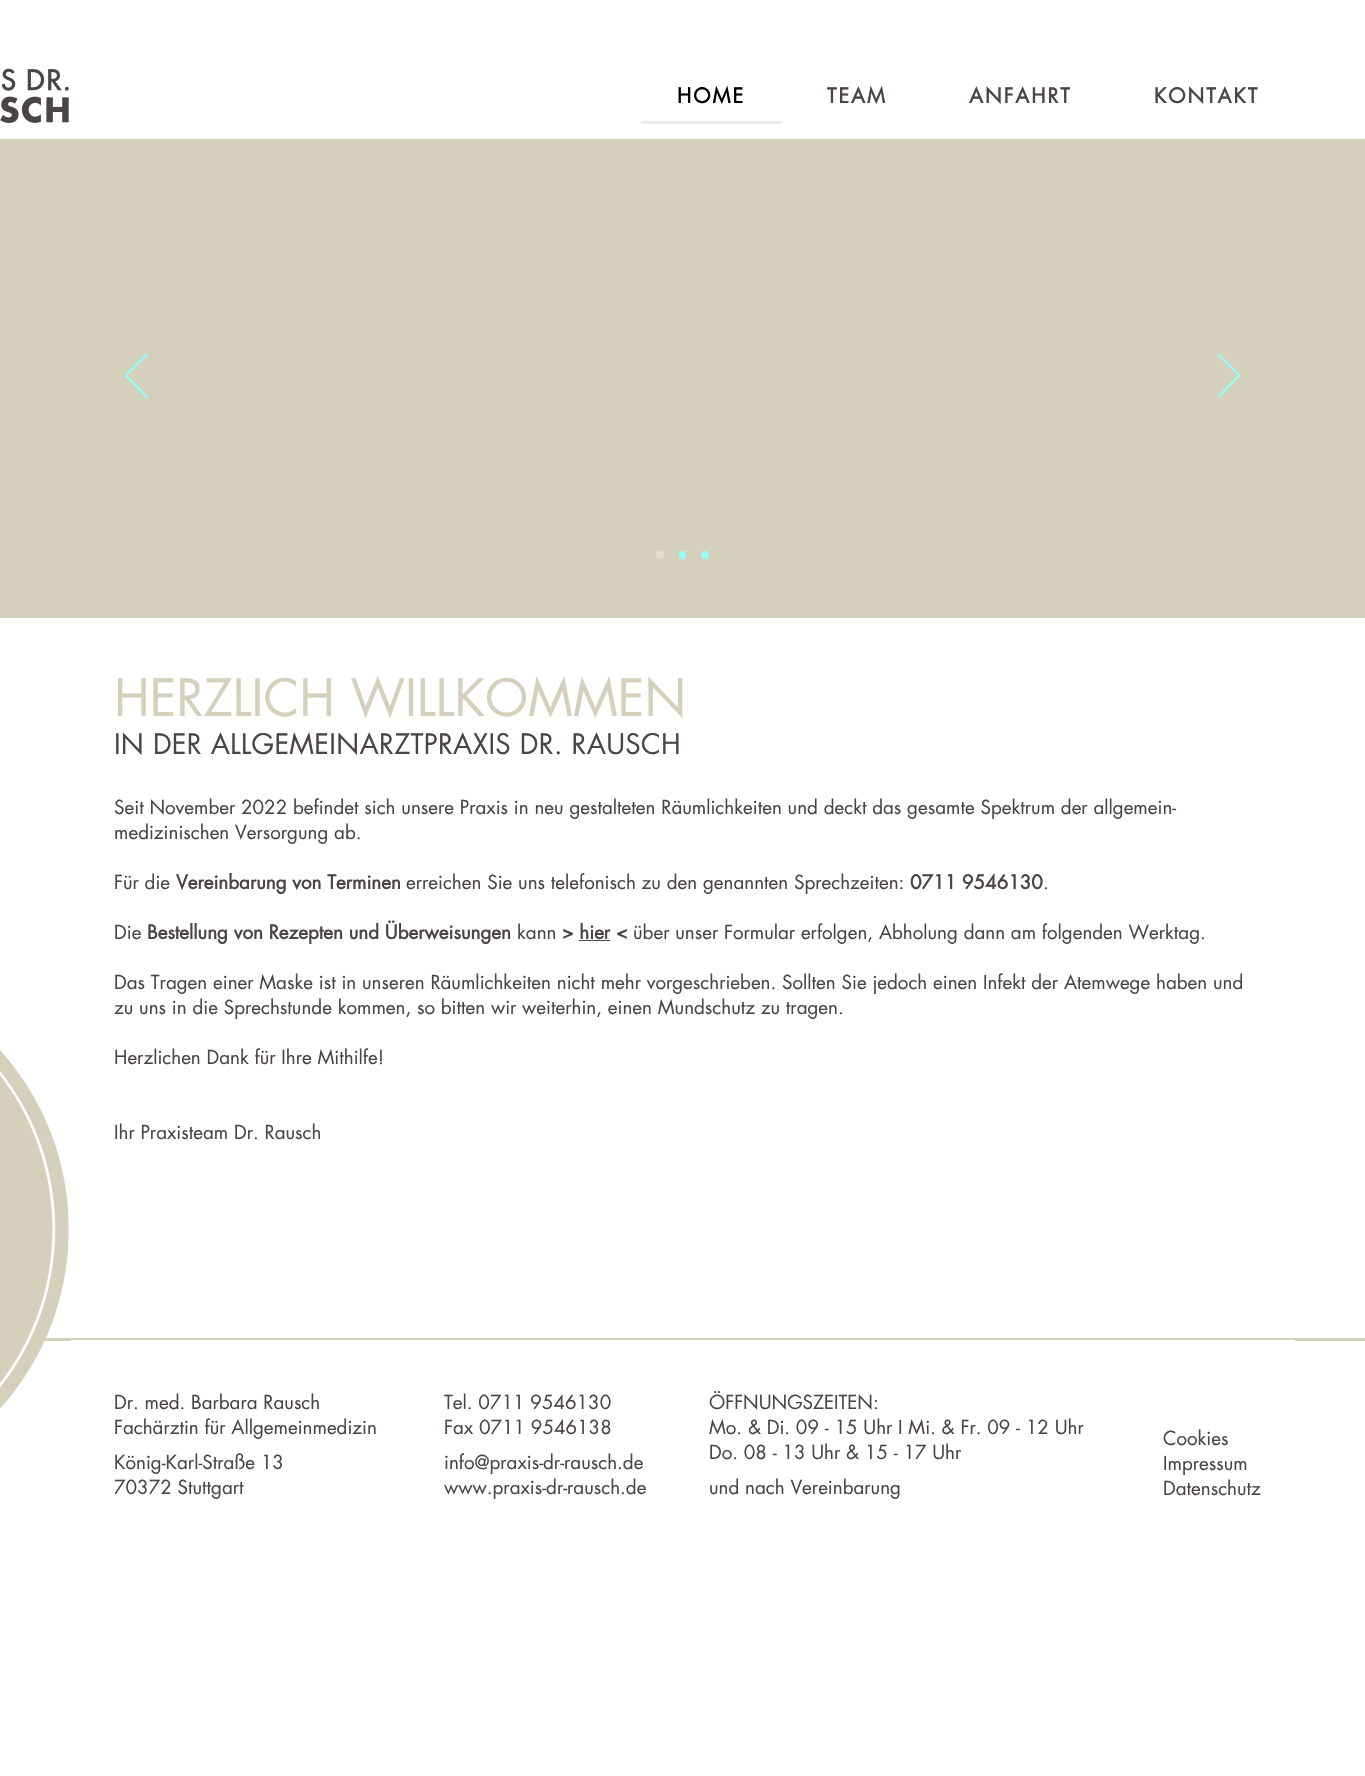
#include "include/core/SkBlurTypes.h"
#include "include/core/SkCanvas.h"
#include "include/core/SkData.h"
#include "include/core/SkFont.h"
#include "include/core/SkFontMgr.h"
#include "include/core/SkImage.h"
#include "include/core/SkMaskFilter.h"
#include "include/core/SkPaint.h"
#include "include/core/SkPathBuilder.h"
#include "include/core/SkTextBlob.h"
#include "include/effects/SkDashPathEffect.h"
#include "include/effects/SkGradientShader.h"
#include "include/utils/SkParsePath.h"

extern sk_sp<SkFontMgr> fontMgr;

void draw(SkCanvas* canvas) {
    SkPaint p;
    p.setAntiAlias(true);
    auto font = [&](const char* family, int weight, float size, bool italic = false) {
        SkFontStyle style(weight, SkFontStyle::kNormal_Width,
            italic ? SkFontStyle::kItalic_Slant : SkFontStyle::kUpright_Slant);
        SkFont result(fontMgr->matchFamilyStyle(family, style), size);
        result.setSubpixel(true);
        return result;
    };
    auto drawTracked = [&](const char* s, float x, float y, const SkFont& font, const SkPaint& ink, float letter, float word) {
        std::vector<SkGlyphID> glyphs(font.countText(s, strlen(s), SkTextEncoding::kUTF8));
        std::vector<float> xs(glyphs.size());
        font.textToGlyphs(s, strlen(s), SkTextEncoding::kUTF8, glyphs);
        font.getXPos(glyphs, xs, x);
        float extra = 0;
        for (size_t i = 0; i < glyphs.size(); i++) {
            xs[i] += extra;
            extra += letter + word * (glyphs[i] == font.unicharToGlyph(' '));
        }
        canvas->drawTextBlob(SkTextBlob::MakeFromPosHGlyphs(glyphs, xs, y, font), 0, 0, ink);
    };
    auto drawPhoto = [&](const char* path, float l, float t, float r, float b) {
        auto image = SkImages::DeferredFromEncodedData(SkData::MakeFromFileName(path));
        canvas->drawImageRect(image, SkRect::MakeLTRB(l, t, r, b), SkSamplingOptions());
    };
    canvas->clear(0xFFFFFFFF);
    drawPhoto("media/1.png", 0, 68, 69, 123);
    p.setColor(0xFFE8EDEA);
    canvas->drawRect(SkRect::MakeLTRB(641, 121, 781, 124), p);
    auto font1 = font("futura", 700, 20);
    p.setColor(0xFF000000);
    drawTracked("HOME", 677, 103, font1, p, 2, 0);
    p.setColor(0xFF4A4445);
    {
        const struct { const char* s; float x, y; } items[] = {
            {"TEAM", 827, 103},
            {"ANFAHRT", 969, 103},
            {"KONTAKT", 1154, 103},
        };
        for (auto [s, x, y] : items) {
            drawTracked(s, x, y, font1, p, 2, 0);
        }
    }
    p.setColor(0xFFD4D0BC);
    canvas->drawRect(SkRect::MakeLTRB(0, 139, 1365, 618), p);
    canvas->save();
    canvas->clipRect(SkRect::MakeLTRB(125, 354, 148, 399));
    p.setStyle(SkPaint::kStroke_Style);
    p.setStrokeWidth(1.1f);
    p.setColor(0xFF96FEF9);
    canvas->drawPath(SkPathBuilder().moveTo(146.5f, 397.5f).lineTo(125, 375.5f).lineTo(146.5f, 354).lineTo(147.5f, 354.5f).lineTo(126.5f, 375.5f).lineTo(147.5f, 396.5f).close().detach(), p);
    canvas->restore();
    canvas->save();
    canvas->clipRect(SkRect::MakeLTRB(1218, 354, 1240, 399));
    canvas->drawPath(SkPathBuilder().moveTo(1218.5f, 397.5f).lineTo(1240, 375.5f).lineTo(1218.5f, 354).lineTo(1217.5f, 354.5f).lineTo(1238.5f, 375.5f).lineTo(1217.5f, 396.5f).close().detach(), p);
    canvas->restore();
    p.setStyle(SkPaint::kFill_Style);
    p.setColor(0xFFE1DED0);
    canvas->drawCircle(660, 555, 4, p);
    p.setColor(0xFF96FEF9);
    canvas->drawRoundRect(SkRect::MakeLTRB(679, 551, 686, 559), 3.5f, 3.5f, p);
    canvas->drawCircle(705, 555, 4, p);
    auto font2 = font("futura", 400, 50);
    p.setColor(0xFFD4D0BC);
    canvas->drawString("HERZLICH WILLKOMMEN", 114, 716, font2, p);
    auto font3 = font("futura", 400, 27.5f);
    p.setColor(0xFF4A4445);
    drawTracked("IN DER ALLGEMEINARZTPRAXIS DR. RAUSCH", 114, 754, font3, p, 0.3f, 0);
    auto font4 = font("futura", 400, 18.75f);
    {
        const struct { const char* s; float x, y; } items[] = {
            {"Seit November 2022 befindet sich unsere Praxis in neu gestalteten Räumlichkeiten und deckt das gesamte Spektrum der allgemein-", 114, 814},
            {"medizinischen Versorgung ab.", 114, 839},
            {"Für die", 114, 889},
        };
        for (auto [s, x, y] : items) {
            canvas->drawString(s, x, y, font4, p);
        }
    }
    auto font5 = font("futura", 700, 18.75f);
    canvas->drawString("Vereinbarung von Terminen", 176, 889, font5, p);
    canvas->drawString("erreichen Sie uns telefonisch zu den genannten Sprechzeiten:", 406, 889, font4, p);
    canvas->drawString("0711 9546130", 910, 889, font5, p);
    canvas->drawString(".", 1043, 889, font4, p);
    canvas->drawString("Die", 114, 939, font4, p);
    canvas->drawString("Bestellung von Rezepten und Überweisungen", 147, 939, font5, p);
    canvas->drawString("kann", 517, 939, font4, p);
    canvas->drawString("> hier <", 562, 939, font5, p);
    canvas->drawRect(SkRect::MakeLTRB(579, 940, 610, 941), p);
    {
        const struct { const char* s; float x, y; } items[] = {
            {"über unser Formular erfolgen, Abholung dann am folgenden Werktag.", 633, 939},
            {"Das Tragen einer Maske ist in unseren Räumlichkeiten nicht mehr vorgeschrieben. Sollten Sie jedoch einen Infekt der Atemwege haben und", 114, 989},
            {"zu uns in die Sprechstunde kommen, so bitten wir weiterhin, einen Mundschutz zu tragen.", 114, 1014},
            {"Herzlichen Dank für Ihre Mithilfe!", 114, 1064},
            {"Ihr Praxisteam Dr. Rausch", 114, 1139},
        };
        for (auto [s, x, y] : items) {
            canvas->drawString(s, x, y, font4, p);
        }
    }
    p.setColor(0xFFD4D0BC);
    canvas->drawRect(SkRect::MakeLTRB(44, 1338, 1365, 1341), p);
    p.setColor(0xFFFFFFFF);
    canvas->drawRect(SkRect::MakeLTRB(70, 1340, 1295, 1341), p);
    drawPhoto("media/2.png", 0, 1050, 69, 1409);
    p.setColor(0xFF4A4445);
    {
        const struct { const char* s; float x, y; } items[] = {
            {"Dr. med. Barbara Rausch", 114, 1409},
            {"Fachärztin für Allgemeinmedizin", 114, 1434},
            {"König-Karl-Straße 13", 114, 1469},
            {"70372 Stuttgart", 114, 1494},
            {"Tel. 0711 9546130", 444, 1409},
            {"Fax 0711 9546138", 444, 1434},
            {"info@praxis-dr-rausch.de", 444, 1469},
            {"www.praxis-dr-rausch.de", 444, 1494},
            {"ÖFFNUNGSZEITEN:", 709, 1409},
            {"Mo. & Di. 09 - 15 Uhr I Mi. & Fr. 09 - 12 Uhr", 709, 1434},
            {"Do. 08 - 13 Uhr & 15 - 17 Uhr", 709, 1459},
            {"und nach Vereinbarung", 709, 1494},
            {"Cookies", 1163, 1445},
            {"Impressum", 1163, 1470},
            {"Datenschutz", 1163, 1495},
        };
        for (auto [s, x, y] : items) {
            canvas->drawString(s, x, y, font4, p);
        }
    }
}
